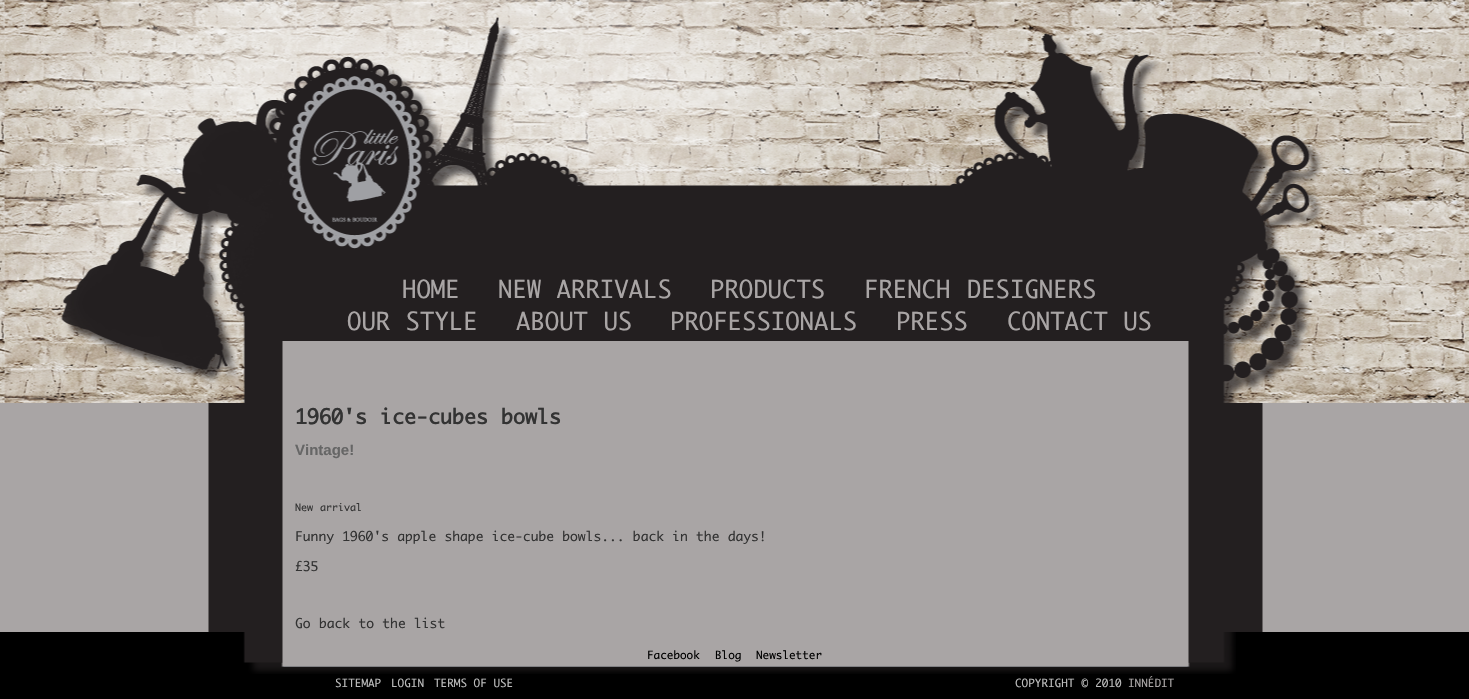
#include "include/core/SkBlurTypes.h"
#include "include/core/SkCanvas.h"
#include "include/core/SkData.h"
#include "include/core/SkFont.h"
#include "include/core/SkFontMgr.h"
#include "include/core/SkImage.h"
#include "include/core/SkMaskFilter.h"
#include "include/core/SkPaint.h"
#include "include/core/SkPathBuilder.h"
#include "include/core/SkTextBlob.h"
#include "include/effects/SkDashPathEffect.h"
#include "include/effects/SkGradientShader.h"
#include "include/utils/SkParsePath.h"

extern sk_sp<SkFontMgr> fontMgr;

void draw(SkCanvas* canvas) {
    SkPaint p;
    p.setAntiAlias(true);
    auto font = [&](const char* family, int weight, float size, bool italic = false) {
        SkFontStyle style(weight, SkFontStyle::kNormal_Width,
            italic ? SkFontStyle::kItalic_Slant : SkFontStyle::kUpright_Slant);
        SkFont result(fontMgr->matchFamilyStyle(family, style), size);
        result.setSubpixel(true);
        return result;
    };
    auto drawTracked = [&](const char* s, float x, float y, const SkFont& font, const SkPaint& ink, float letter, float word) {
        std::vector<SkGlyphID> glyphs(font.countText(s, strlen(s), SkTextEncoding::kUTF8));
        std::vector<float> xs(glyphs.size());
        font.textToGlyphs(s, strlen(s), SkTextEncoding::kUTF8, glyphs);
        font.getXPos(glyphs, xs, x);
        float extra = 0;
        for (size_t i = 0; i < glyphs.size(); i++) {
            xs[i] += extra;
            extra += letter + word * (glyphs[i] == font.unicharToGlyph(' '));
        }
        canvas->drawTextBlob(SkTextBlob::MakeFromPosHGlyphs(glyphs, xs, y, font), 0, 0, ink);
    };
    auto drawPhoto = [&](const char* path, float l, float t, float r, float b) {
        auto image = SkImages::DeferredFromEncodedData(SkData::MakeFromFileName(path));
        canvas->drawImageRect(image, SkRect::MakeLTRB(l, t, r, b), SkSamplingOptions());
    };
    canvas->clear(0xFF000000);
    drawPhoto("media/1.png", 0, 0, 1469, 403);
    drawPhoto("media/2.png", 11, 0, 1323, 403);
    auto font1 = font("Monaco", 400, 24);
    p.setColor(0xFFA9A5A5);
    canvas->drawString("HOME", 402, 298, font1, p);
    drawTracked("NEW ARRIVALS", 498, 298, font1, p, 0, 1);
    canvas->drawString("PRODUCTS", 710, 298, font1, p);
    drawTracked("FRENCH DESIGNERS", 864, 298, font1, p, 0, 2);
    drawTracked("OUR STYLE", 347, 330, font1, p, 0, 1);
    drawTracked("ABOUT US", 516, 330, font1, p, 0, 1);
    canvas->drawString("PROFESSIONALS", 670, 330, font1, p);
    canvas->drawString("PRESS", 896, 330, font1, p);
    drawTracked("CONTACT US", 1007, 330, font1, p, 0, 1);
    drawPhoto("media/3.png", 0, 403, 1469, 632);
    auto font2 = font("Monaco", 700, 20);
    p.setColor(0xFF333333);
    drawTracked("1960's ice-cubes bowls", 295, 424, font2, p, 0, 1);
    auto font3 = font("Liberation Sans", 700, 15);
    p.setColor(0xFF666666);
    canvas->drawString("Vintage!", 295, 455, font3, p);
    auto font4 = font("Monaco", 400, 10);
    p.setColor(0xFF333333);
    drawTracked("New arrival", 295, 511, font4, p, 0, 1);
    auto font5 = font("Monaco", 400, 13);
    drawTracked("Funny 1960's apple shape ice-cube bowls... back in the days!", 295, 541, font5, p, 0, 0.4f);
    canvas->drawString("£35", 295, 571, font5, p);
    drawTracked("Go back to the list", 295, 628, font5, p, 0, 0.5f);
    drawPhoto("media/4.png", 243, 632, 1236, 674);
    auto font6 = font("Monaco", 400, 11);
    p.setColor(0xFF000000);
    {
        const struct { const char* s; float x, y; } items[] = {
            {"Facebook", 647, 659},
            {"Blog", 715, 659},
            {"Newsletter", 756, 659},
        };
        for (auto [s, x, y] : items) {
            canvas->drawString(s, x, y, font6, p);
        }
    }
    p.setColor(0xFFBBBBBB);
    {
        const struct { const char* s; float x, y; } items[] = {
            {"SITEMAP", 335, 687},
            {"LOGIN", 391, 687},
            {"TERMS OF USE", 434, 687},
        };
        for (auto [s, x, y] : items) {
            canvas->drawString(s, x, y, font6, p);
        }
    }
    drawTracked("COPYRIGHT © 2010", 1015, 687, font6, p, 0, 0.5f);
    p.setColor(0xFFA9A5A5);
    canvas->drawString("INNÉDIT", 1128, 687, font6, p);
}
